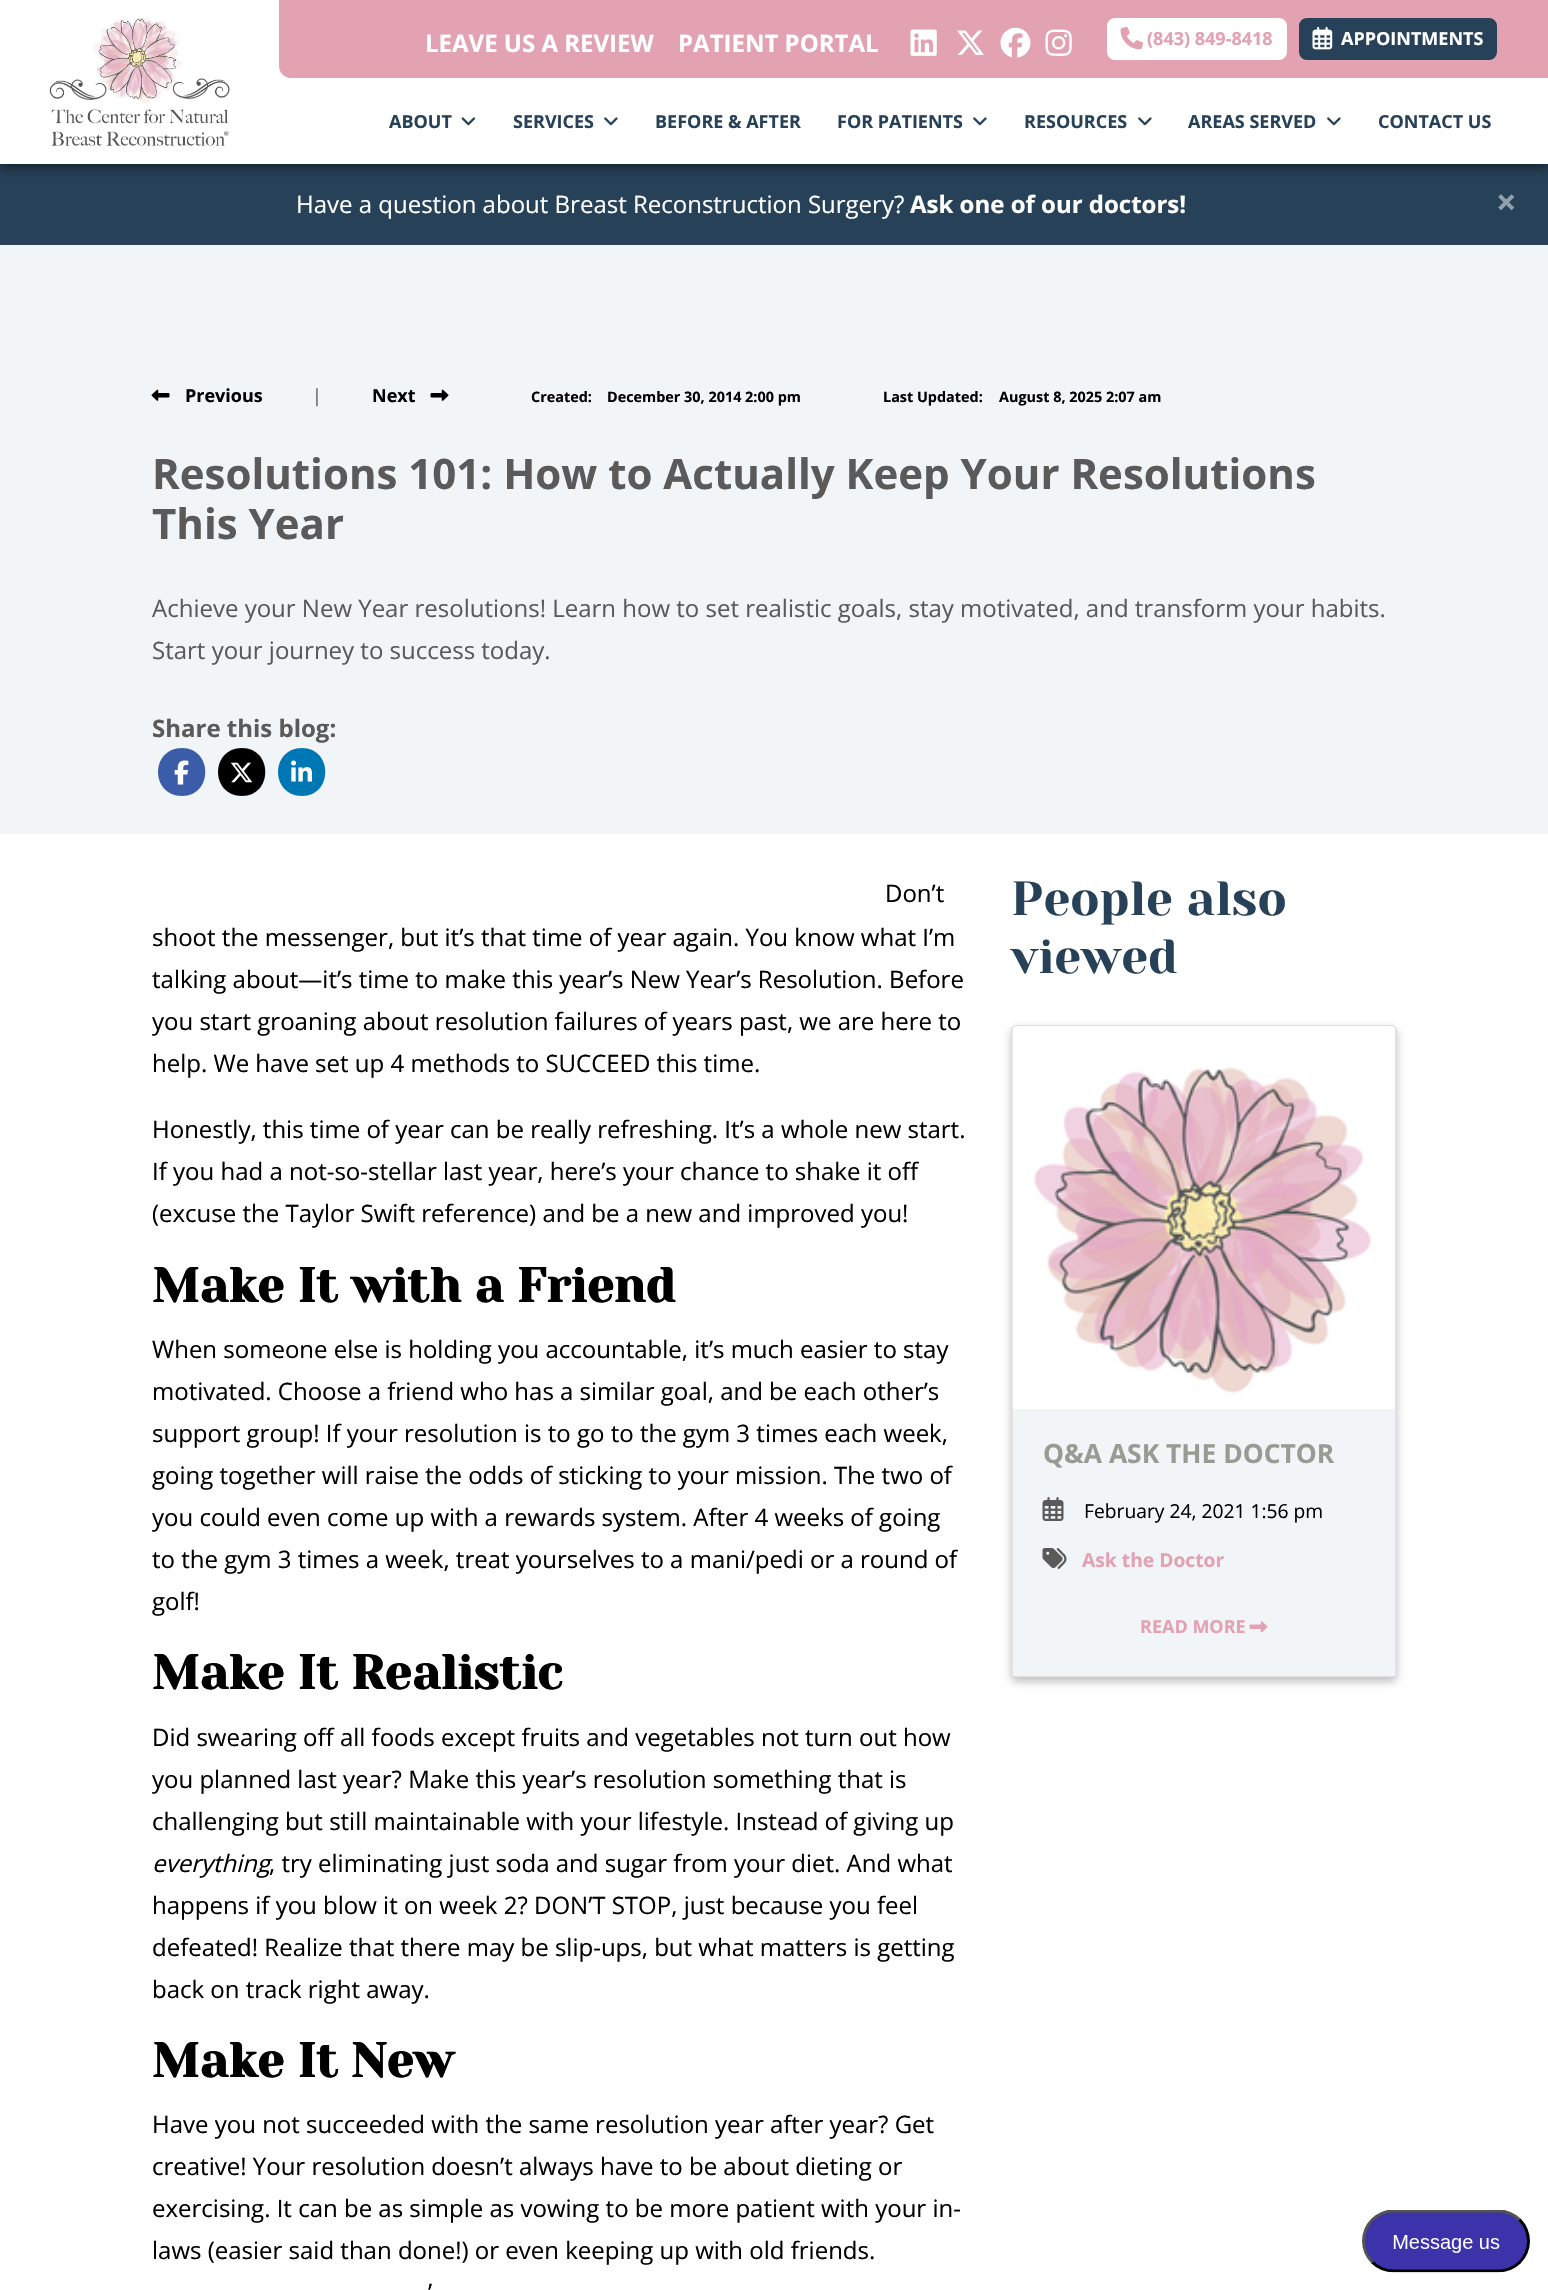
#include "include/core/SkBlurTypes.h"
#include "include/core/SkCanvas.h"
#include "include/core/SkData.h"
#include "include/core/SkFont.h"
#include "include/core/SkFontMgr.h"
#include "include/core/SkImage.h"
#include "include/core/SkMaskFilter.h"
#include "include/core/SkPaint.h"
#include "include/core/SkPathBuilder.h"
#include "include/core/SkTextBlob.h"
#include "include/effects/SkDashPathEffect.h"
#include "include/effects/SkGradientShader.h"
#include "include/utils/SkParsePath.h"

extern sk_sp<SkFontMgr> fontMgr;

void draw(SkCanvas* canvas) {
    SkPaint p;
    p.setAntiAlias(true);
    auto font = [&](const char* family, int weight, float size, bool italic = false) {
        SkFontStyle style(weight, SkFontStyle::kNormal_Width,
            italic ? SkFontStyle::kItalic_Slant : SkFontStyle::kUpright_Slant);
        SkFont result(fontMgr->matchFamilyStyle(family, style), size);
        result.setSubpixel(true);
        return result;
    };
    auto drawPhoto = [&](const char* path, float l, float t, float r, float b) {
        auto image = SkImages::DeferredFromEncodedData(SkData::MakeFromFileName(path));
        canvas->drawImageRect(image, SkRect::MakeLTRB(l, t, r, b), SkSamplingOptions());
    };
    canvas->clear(0xFFFFFFFF);
    p.setColor(0xFF274158);
    canvas->drawRect(SkRect::MakeLTRB(0, 164, 1548, 245), p);
    p.setColor(0x8F000000);
    p.setMaskFilter(SkMaskFilter::MakeBlur(kNormal_SkBlurStyle, 6));
    canvas->drawRect(SkRect::MakeLTRB(0, 3, 1548, 167), p);
    p.setMaskFilter(nullptr);
    p.setColor(0xFFFFFFFF);
    canvas->drawRect(SkRect::MakeLTRB(0, 0, 1548, 164), p);
    drawPhoto("media/1.png", 49, 18, 230, 146);
    p.setColor(0xFFE2A2B2);
    canvas->drawPath(SkPathBuilder().moveTo(279, 0).lineTo(1548, 0).lineTo(1548, 78).lineTo(291, 78).cubicTo(284.5f, 78, 279, 72.5f, 279, 66).close().detach(), p);
    auto font1 = font("Open Sans", 700, 24);
    p.setColor(0xFFFFFFFF);
    canvas->drawString("LEAVE US A REVIEW", 425, 52, font1, p);
    canvas->drawString("PATIENT PORTAL", 678, 52, font1, p);
    drawPhoto("media/2.png", 910, 29, 937, 56);
    drawPhoto("media/3.png", 957, 30, 984, 55);
    drawPhoto("media/4.png", 1000, 27, 1031, 58);
    drawPhoto("media/5.png", 1045, 29, 1072, 56);
    canvas->drawRoundRect(SkRect::MakeLTRB(1108, 19, 1286, 59), 7, 7, p);
    p.setStyle(SkPaint::kStroke_Style);
    p.setStrokeWidth(2);
    canvas->drawRoundRect(SkRect::MakeLTRB(1108, 19, 1286, 59), 7, 7, p);
    drawPhoto("media/6.png", 1120, 26, 1143, 50);
    auto font2 = font("Open Sans", 700, 18);
    p.setStyle(SkPaint::kFill_Style);
    p.setColor(0xFFE2A2B2);
    canvas->drawString("(843) 849-8418", 1147, 45, font2, p);
    p.setColor(0xFF274158);
    canvas->drawRoundRect(SkRect::MakeLTRB(1300, 19, 1496, 59), 7, 7, p);
    p.setStyle(SkPaint::kStroke_Style);
    canvas->drawRoundRect(SkRect::MakeLTRB(1300, 19, 1496, 59), 7, 7, p);
    drawPhoto("media/7.png", 1312, 26, 1333, 50);
    p.setStyle(SkPaint::kFill_Style);
    p.setColor(0xFFFFFFFF);
    canvas->drawString("APPOINTMENTS", 1341, 45, font2, p);
    p.setColor(0xFF274158);
    canvas->drawString("ABOUT", 389, 128, font2, p);
    drawPhoto("media/8.png", 461, 117, 476, 126);
    canvas->drawString("SERVICES", 513, 128, font2, p);
    drawPhoto("media/9.png", 604, 117, 618, 126);
    canvas->drawString("BEFORE & AFTER", 655, 128, font2, p);
    canvas->drawString("FOR PATIENTS", 837, 128, font2, p);
    drawPhoto("media/9.png", 973, 117, 987, 126);
    canvas->drawString("RESOURCES", 1024, 128, font2, p);
    drawPhoto("media/9.png", 1138, 117, 1152, 126);
    canvas->drawString("AREAS SERVED", 1188, 128, font2, p);
    drawPhoto("media/9.png", 1327, 117, 1341, 126);
    canvas->drawString("CONTACT US", 1378, 128, font2, p);
    auto font3 = font("Open Sans", 400, 24);
    p.setColor(0xFFFFFFFF);
    canvas->drawString("Have a question about Breast Reconstruction Surgery?", 296, 213, font3, p);
    canvas->drawString("Ask one of our doctors!", 910, 213, font1, p);
    auto font4 = font("Open Sans", 700, 36);
    p.setColor(0xFF93A0AC);
    canvas->drawString("×", 1496, 215, font4, p);
    p.setColor(0xFFF2F5F8);
    canvas->drawRect(SkRect::MakeLTRB(0, 245, 1548, 834), p);
    drawPhoto("media/10.png", 151, 389, 170, 401);
    p.setColor(0xFF000000);
    canvas->drawString("Previous", 185, 402, font2, p);
    auto font5 = font("Open Sans", 400, 18);
    p.setColor(0xFF5A5A5A);
    canvas->drawString("|", 312, 402, font5, p);
    p.setColor(0xFF000000);
    canvas->drawString("Next", 372, 402, font2, p);
    drawPhoto("media/11.png", 430, 389, 449, 401);
    auto font6 = font("Open Sans", 700, 14.4f);
    {
        const struct { const char* s; float x, y; } items[] = {
            {"Created:", 531, 402},
            {"December 30, 2014 2:00 pm", 607, 402},
            {"Last Updated:", 883, 402},
            {"August 8, 2025 2:07 am", 999, 402},
        };
        for (auto [s, x, y] : items) {
            canvas->drawString(s, x, y, font6, p);
        }
    }
    auto font7 = font("Open Sans", 700, 42);
    p.setColor(0xFF5A5A5A);
    canvas->drawString("Resolutions 101: How to Actually Keep Your Resolutions", 152, 489, font7, p);
    canvas->drawString("This Year", 152, 539, font7, p);
    canvas->drawString("Achieve your New Year resolutions! Learn how to set realistic goals, stay motivated, and transform your habits.", 152, 617, font3, p);
    canvas->drawString("Start your journey to success today.", 152, 659, font3, p);
    canvas->drawString("Share this blog:", 152, 737, font1, p);
    p.setColor(0xFF3B5CA9);
    canvas->drawPath(SkPathBuilder().moveTo(182, 796).cubicTo(213, 796, 213, 748, 182, 748).cubicTo(150, 748, 150, 796, 182, 796).close().detach(), p);
    drawPhoto("media/12.png", 174, 760, 189, 785);
    p.setColor(0xFF000000);
    canvas->drawPath(SkPathBuilder().moveTo(242, 796).cubicTo(273, 796, 273, 748, 242, 748).cubicTo(210, 748, 210, 796, 242, 796).close().detach(), p);
    drawPhoto("media/13.png", 230, 762, 253, 783);
    p.setColor(0xFF0077B5);
    canvas->drawPath(SkPathBuilder().moveTo(302, 796).cubicTo(333, 796, 333, 748, 302, 748).cubicTo(270, 748, 270, 796, 302, 796).close().detach(), p);
    drawPhoto("media/14.png", 291, 760, 312, 782);
    p.setColor(0xFF000000);
    {
        const struct { const char* s; float x, y; } items[] = {
            {"Don’t", 885, 902},
            {"shoot the messenger, but it’s that time of year again. You know what I’m", 152, 946},
            {"talking about—it’s time to make this year’s New Year’s Resolution. Before", 152, 988},
            {"you start groaning about resolution failures of years past, we are here to", 152, 1030},
            {"help. We have set up 4 methods to SUCCEED this time.", 152, 1072},
            {"Honestly, this time of year can be really refreshing. It’s a whole new start.", 152, 1138},
            {"If you had a not-so-stellar last year, here’s your chance to shake it off", 152, 1180},
            {"(excuse the Taylor Swift reference) and be a new and improved you!", 152, 1222},
        };
        for (auto [s, x, y] : items) {
            canvas->drawString(s, x, y, font3, p);
        }
    }
    auto font8 = font("Yeseva One", 700, 48);
    canvas->drawString("Make It with a Friend", 152, 1302, font8, p);
    {
        const struct { const char* s; float x, y; } items[] = {
            {"When someone else is holding you accountable, it’s much easier to stay", 152, 1358},
            {"motivated. Choose a friend who has a similar goal, and be each other’s", 152, 1400},
            {"support group! If your resolution is to go to the gym 3 times each week,", 152, 1442},
            {"going together will raise the odds of sticking to your mission. The two of", 152, 1484},
            {"you could even come up with a rewards system. After 4 weeks of going", 152, 1526},
            {"to the gym 3 times a week, treat yourselves to a mani/pedi or a round of", 152, 1568},
            {"golf!", 152, 1610},
        };
        for (auto [s, x, y] : items) {
            canvas->drawString(s, x, y, font3, p);
        }
    }
    canvas->drawString("Make It Realistic", 152, 1689, font8, p);
    {
        const struct { const char* s; float x, y; } items[] = {
            {"Did swearing off all foods except fruits and vegetables not turn out how", 152, 1746},
            {"you planned last year? Make this year’s resolution something that is", 152, 1788},
            {"challenging but still maintainable with your lifestyle. Instead of giving up", 152, 1830},
        };
        for (auto [s, x, y] : items) {
            canvas->drawString(s, x, y, font3, p);
        }
    }
    auto font9 = font("Open Sans", 400, 24, true);
    canvas->drawString("everything", 152, 1872, font9, p);
    {
        const struct { const char* s; float x, y; } items[] = {
            {", try eliminating just soda and sugar from your diet. And what", 269, 1872},
            {"happens if you blow it on week 2? DON’T STOP, just because you feel", 152, 1914},
            {"defeated! Realize that there may be slip-ups, but what matters is getting", 152, 1956},
            {"back on track right away.", 152, 1998},
        };
        for (auto [s, x, y] : items) {
            canvas->drawString(s, x, y, font3, p);
        }
    }
    canvas->drawString("Make It New", 152, 2077, font8, p);
    {
        const struct { const char* s; float x, y; } items[] = {
            {"Have you not succeeded with the same resolution year after year? Get", 152, 2133},
            {"creative! Your resolution doesn’t always have to be about dieting or", 152, 2175},
            {"exercising. It can be as simple as vowing to be more patient with your in-", 152, 2217},
            {"laws (easier said than done!) or even keeping up with old friends.", 152, 2259},
            {"’", 428, 2301},
        };
        for (auto [s, x, y] : items) {
            canvas->drawString(s, x, y, font3, p);
        }
    }
    auto font10 = font("Yeseva One", 400, 48);
    p.setColor(0xFF274158);
    canvas->drawString("People also", 1011, 915, font10, p);
    canvas->drawString("viewed", 1011, 973, font10, p);
    p.setColor(0x3D000000);
    p.setMaskFilter(SkMaskFilter::MakeBlur(kNormal_SkBlurStyle, 4.5f));
    canvas->drawRoundRect(SkRect::MakeLTRB(1011, 1029, 1397, 1682), 6, 6, p);
    p.setMaskFilter(nullptr);
    p.setColor(0xFFFFFFFF);
    canvas->drawRoundRect(SkRect::MakeLTRB(1011, 1025, 1397, 1677), 6, 6, p);
    p.setStyle(SkPaint::kStroke_Style);
    p.setColor(0x1F000000);
    canvas->drawRoundRect(SkRect::MakeLTRB(1012, 1026, 1396, 1676), 5, 5, p);
    drawPhoto("media/15.png", 1012, 1026, 1395, 1408);
    p.setStyle(SkPaint::kFill_Style);
    p.setColor(0xFFF2F5F8);
    canvas->drawRect(SkRect::MakeLTRB(1013, 1409, 1395, 1676), p);
    auto font11 = font("Open Sans", 700, 26.4f);
    p.setColor(0xFF959D93);
    canvas->drawString("Q&A ASK THE DOCTOR", 1043, 1463, font11, p);
    drawPhoto("media/16.png", 1042, 1497, 1064, 1521);
    auto font12 = font("Open Sans", 400, 19.25f);
    p.setColor(0xFF000000);
    canvas->drawString("February 24, 2021 1:56 pm", 1084, 1518, font12, p);
    drawPhoto("media/17.png", 1042, 1548, 1067, 1569);
    auto font13 = font("Open Sans", 700, 19.25f);
    p.setColor(0xFFE2A2B2);
    canvas->drawString("Ask the Doctor", 1082, 1567, font13, p);
    canvas->drawString("READ MORE", 1140, 1633, font2, p);
    drawPhoto("media/18.png", 1249, 1621, 1268, 1633);
    drawPhoto("media/19.png", 1362, 2210, 1530, 2273);
}
